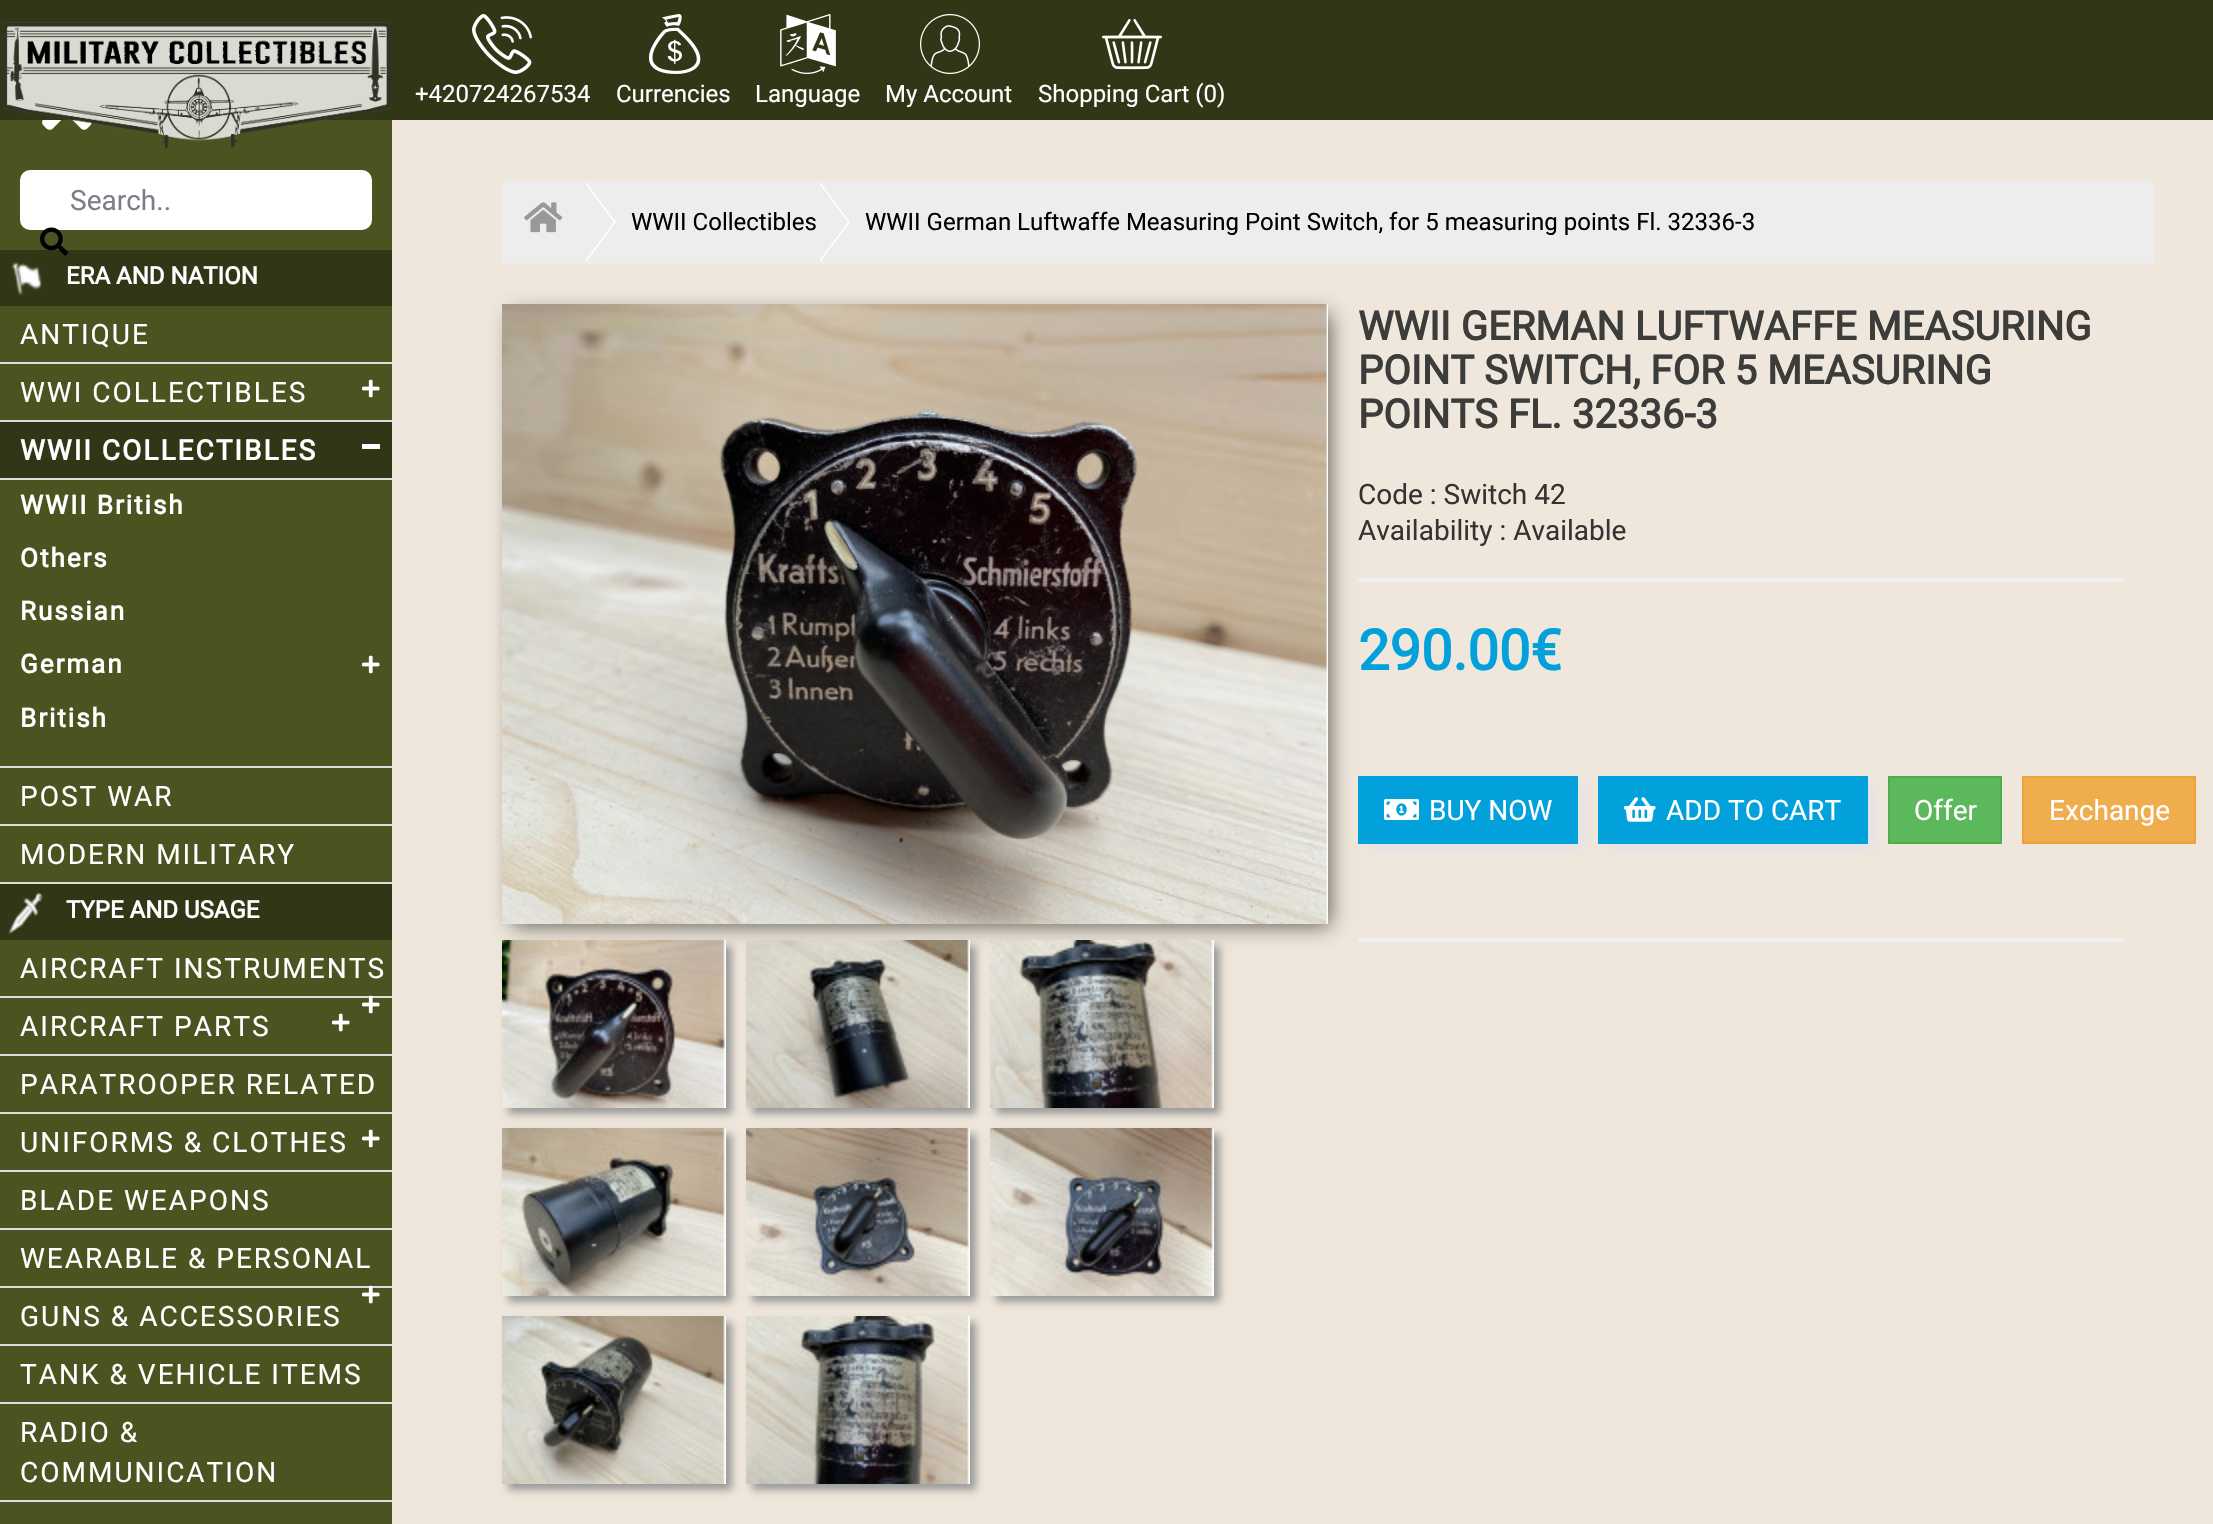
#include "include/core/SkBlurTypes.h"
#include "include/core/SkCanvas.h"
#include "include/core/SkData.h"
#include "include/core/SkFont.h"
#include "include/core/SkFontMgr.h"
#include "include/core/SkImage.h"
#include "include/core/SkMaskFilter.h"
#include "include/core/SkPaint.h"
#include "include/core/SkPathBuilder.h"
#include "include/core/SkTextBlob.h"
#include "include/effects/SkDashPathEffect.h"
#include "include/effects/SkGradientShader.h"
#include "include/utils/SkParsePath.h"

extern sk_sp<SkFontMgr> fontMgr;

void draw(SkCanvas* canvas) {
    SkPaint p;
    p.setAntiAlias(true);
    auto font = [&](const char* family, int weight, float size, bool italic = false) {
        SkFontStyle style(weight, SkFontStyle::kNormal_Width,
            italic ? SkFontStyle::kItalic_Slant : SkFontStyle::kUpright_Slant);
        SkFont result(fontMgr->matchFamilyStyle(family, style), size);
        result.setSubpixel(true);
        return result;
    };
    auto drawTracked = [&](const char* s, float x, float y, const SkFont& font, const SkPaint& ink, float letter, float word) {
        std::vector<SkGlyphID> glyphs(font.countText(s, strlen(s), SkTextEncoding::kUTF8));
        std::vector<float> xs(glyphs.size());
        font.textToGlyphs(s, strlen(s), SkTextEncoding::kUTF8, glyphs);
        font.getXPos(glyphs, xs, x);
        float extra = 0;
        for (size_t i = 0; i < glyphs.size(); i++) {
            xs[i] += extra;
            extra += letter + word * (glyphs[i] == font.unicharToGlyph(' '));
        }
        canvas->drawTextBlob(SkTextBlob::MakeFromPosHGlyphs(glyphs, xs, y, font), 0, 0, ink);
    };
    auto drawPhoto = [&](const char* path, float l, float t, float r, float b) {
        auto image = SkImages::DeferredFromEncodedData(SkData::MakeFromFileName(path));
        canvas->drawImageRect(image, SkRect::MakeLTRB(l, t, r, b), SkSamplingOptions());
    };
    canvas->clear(0xFFEFE7DB);
    p.setColor(0xFF313616);
    canvas->drawRect(SkRect::MakeLTRB(0, 0, 2213, 120), p);
    p.setColor(0xFF4B5320);
    canvas->drawRect(SkRect::MakeLTRB(0, 120, 392, 1524), p);
    drawPhoto("media/7.png", 42, 120, 92, 130);
    drawPhoto("media/1.png", 3, 22, 391, 149);
    drawPhoto("media/2.png", 472, 14, 532, 74);
    auto font1 = font("Roboto", 400, 24);
    p.setColor(0xFFFFFFFF);
    canvas->drawString("+420724267534", 415, 102, font1, p);
    drawPhoto("media/3.png", 649, 14, 701, 74);
    canvas->drawString("Currencies", 616, 102, font1, p);
    drawPhoto("media/4.png", 780, 14, 836, 74);
    canvas->drawString("Language", 755, 102, font1, p);
    drawPhoto("media/5.png", 920, 14, 980, 74);
    canvas->drawString("My Account", 885, 102, font1, p);
    drawPhoto("media/6.png", 1102, 18, 1162, 70);
    canvas->drawString("Shopping Cart (0)", 1038, 102, font1, p);
    canvas->drawRoundRect(SkRect::MakeLTRB(20, 170, 372, 230), 10, 10, p);
    auto font2 = font("Roboto", 400, 28);
    p.setColor(0xFF7B7E86);
    canvas->drawString("Search..", 70, 210, font2, p);
    p.setColor(0xFF313616);
    canvas->drawRect(SkRect::MakeLTRB(0, 250, 392, 306), p);
    drawPhoto("media/8.png", 40, 227, 68, 256);
    drawPhoto("media/9.png", 11, 262, 42, 296);
    auto font3 = font("Roboto", 700, 24);
    p.setColor(0xFFFFFFFF);
    canvas->drawString("ERA AND NATION", 66, 284, font3, p);
    p.setColor(0xFFDDDDDD);
    canvas->drawRect(SkRect::MakeLTRB(0, 362, 392, 364), p);
    p.setColor(0xFFFFFFFF);
    drawTracked("ANTIQUE", 20, 344, font2, p, 2, 0);
    p.setColor(0xFFDDDDDD);
    canvas->drawRect(SkRect::MakeLTRB(0, 420, 392, 422), p);
    p.setColor(0xFFFFFFFF);
    drawTracked("WWI COLLECTIBLES", 20, 402, font2, p, 2, 0);
    drawPhoto("media/10.png", 362, 379, 380, 398);
    p.setColor(0xFF313616);
    canvas->drawRect(SkRect::MakeLTRB(0, 422, 392, 478), p);
    p.setColor(0xFFDDDDDD);
    canvas->drawRect(SkRect::MakeLTRB(0, 478, 392, 480), p);
    auto font4 = font("Roboto", 700, 28);
    p.setColor(0xFFFFFFFF);
    drawTracked("WWII COLLECTIBLES", 20, 460, font4, p, 2, 0);
    canvas->drawRect(SkRect::MakeLTRB(362, 444, 380, 449), p);
    p.setColor(0xFFDDDDDD);
    canvas->drawRect(SkRect::MakeLTRB(0, 766, 392, 768), p);
    auto font5 = font("Roboto", 700, 26);
    p.setColor(0xFFFFFFFF);
    {
        const struct { const char* s; float x, y; } items[] = {
            {"WWII British", 20, 514},
            {"Others", 20, 567},
            {"Russian", 20, 620},
            {"German", 20, 673},
        };
        for (auto [s, x, y] : items) {
            drawTracked(s, x, y, font5, p, 2, 0);
        }
    }
    drawPhoto("media/10.png", 362, 655, 380, 674);
    drawTracked("British", 20, 727, font5, p, 2, 0);
    p.setColor(0xFFDDDDDD);
    canvas->drawRect(SkRect::MakeLTRB(0, 824, 392, 826), p);
    p.setColor(0xFFFFFFFF);
    drawTracked("POST WAR", 20, 806, font2, p, 2, 0);
    p.setColor(0xFFDDDDDD);
    canvas->drawRect(SkRect::MakeLTRB(0, 882, 392, 884), p);
    p.setColor(0xFFFFFFFF);
    drawTracked("MODERN MILITARY", 20, 864, font2, p, 2, 0);
    p.setColor(0xFF313616);
    canvas->drawRect(SkRect::MakeLTRB(0, 884, 392, 940), p);
    drawPhoto("media/11.png", 8, 892, 43, 934);
    p.setColor(0xFFFFFFFF);
    canvas->drawString("TYPE AND USAGE", 66, 918, font3, p);
    p.setColor(0xFFDDDDDD);
    canvas->drawRect(SkRect::MakeLTRB(0, 996, 392, 998), p);
    p.setColor(0xFFFFFFFF);
    drawTracked("AIRCRAFT INSTRUMENTS", 20, 978, font2, p, 2, 0);
    drawPhoto("media/12.png", 362, 995, 380, 1014);
    p.setColor(0xFFDDDDDD);
    canvas->drawRect(SkRect::MakeLTRB(0, 1054, 392, 1056), p);
    p.setColor(0xFFFFFFFF);
    drawTracked("AIRCRAFT PARTS", 20, 1036, font2, p, 2, 0);
    drawPhoto("media/10.png", 332, 1013, 350, 1032);
    p.setColor(0xFFDDDDDD);
    canvas->drawRect(SkRect::MakeLTRB(0, 1112, 392, 1114), p);
    p.setColor(0xFFFFFFFF);
    drawTracked("PARATROOPER RELATED", 20, 1094, font2, p, 2, 0);
    p.setColor(0xFFDDDDDD);
    canvas->drawRect(SkRect::MakeLTRB(0, 1170, 392, 1172), p);
    p.setColor(0xFFFFFFFF);
    drawTracked("UNIFORMS & CLOTHES", 20, 1152, font2, p, 2, 0);
    drawPhoto("media/10.png", 362, 1129, 380, 1148);
    p.setColor(0xFFDDDDDD);
    canvas->drawRect(SkRect::MakeLTRB(0, 1228, 392, 1230), p);
    p.setColor(0xFFFFFFFF);
    drawTracked("BLADE WEAPONS", 20, 1210, font2, p, 2, 0);
    p.setColor(0xFFDDDDDD);
    canvas->drawRect(SkRect::MakeLTRB(0, 1286, 392, 1288), p);
    p.setColor(0xFFFFFFFF);
    drawTracked("WEARABLE & PERSONAL", 20, 1268, font2, p, 2, 0);
    drawPhoto("media/12.png", 362, 1285, 380, 1304);
    p.setColor(0xFFDDDDDD);
    canvas->drawRect(SkRect::MakeLTRB(0, 1344, 392, 1346), p);
    p.setColor(0xFFFFFFFF);
    drawTracked("GUNS & ACCESSORIES", 20, 1326, font2, p, 2, 0);
    p.setColor(0xFFDDDDDD);
    canvas->drawRect(SkRect::MakeLTRB(0, 1402, 392, 1404), p);
    p.setColor(0xFFFFFFFF);
    drawTracked("TANK & VEHICLE ITEMS", 20, 1384, font2, p, 2, 0);
    p.setColor(0xFFDDDDDD);
    canvas->drawRect(SkRect::MakeLTRB(0, 1500, 392, 1502), p);
    p.setColor(0xFFFFFFFF);
    drawTracked("RADIO &", 20, 1442, font2, p, 2, 0);
    drawTracked("COMMUNICATION", 20, 1482, font2, p, 2, 0);
    p.setColor(0xFFEDEDEC);
    canvas->drawRect(SkRect::MakeLTRB(503, 181, 2153, 263), p);
    p.setStyle(SkPaint::kStroke_Style);
    p.setStrokeWidth(2);
    p.setColor(0xFFEBEBF0);
    canvas->drawRect(SkRect::MakeLTRB(503, 181, 2153, 263), p);
    drawPhoto("media/13.png", 524, 202, 563, 233);
    p.setStyle(SkPaint::kFill_Style);
    p.setColor(0xFFFFFFFF);
    canvas->drawPath(SkPathBuilder().moveTo(586, 262).lineTo(586, 182).lineTo(616, 222).close().detach(), p);
    p.setColor(0xFFEDEDEC);
    canvas->drawPath(SkPathBuilder().moveTo(584, 262).lineTo(584, 182).lineTo(614, 222).close().detach(), p);
    p.setColor(0xFF000000);
    canvas->drawString("WWII Collectibles", 631, 230, font1, p);
    p.setColor(0xFFFFFFFF);
    canvas->drawPath(SkPathBuilder().moveTo(820, 262).lineTo(820, 182).lineTo(850, 222).close().detach(), p);
    p.setColor(0xFFEDEDEC);
    canvas->drawPath(SkPathBuilder().moveTo(818, 262).lineTo(818, 182).lineTo(848, 222).close().detach(), p);
    p.setColor(0xFF000000);
    canvas->drawString("WWII German Luftwaffe Measuring Point Switch, for 5 measuring points Fl. 32336-3", 865, 230, font1, p);
    p.setColor(0x99000000);
    p.setMaskFilter(SkMaskFilter::MakeBlur(kNormal_SkBlurStyle, 10));
    canvas->drawRect(SkRect::MakeLTRB(512, 314, 1330, 926), p);
    p.setMaskFilter(nullptr);
    drawPhoto("media/14.png", 502, 304, 1328, 924);
    p.setColor(0xFF999999);
    p.setMaskFilter(SkMaskFilter::MakeBlur(kNormal_SkBlurStyle, 4));
    canvas->drawRect(SkRect::MakeLTRB(508, 946, 732, 1114), p);
    p.setMaskFilter(nullptr);
    drawPhoto("media/15.png", 502, 940, 726, 1108);
    p.setMaskFilter(SkMaskFilter::MakeBlur(kNormal_SkBlurStyle, 4));
    canvas->drawRect(SkRect::MakeLTRB(752, 946, 976, 1114), p);
    p.setMaskFilter(nullptr);
    drawPhoto("media/16.png", 746, 940, 970, 1108);
    p.setMaskFilter(SkMaskFilter::MakeBlur(kNormal_SkBlurStyle, 4));
    canvas->drawRect(SkRect::MakeLTRB(996, 946, 1220, 1114), p);
    p.setMaskFilter(nullptr);
    drawPhoto("media/17.png", 990, 940, 1214, 1108);
    p.setMaskFilter(SkMaskFilter::MakeBlur(kNormal_SkBlurStyle, 4));
    canvas->drawRect(SkRect::MakeLTRB(508, 1134, 732, 1302), p);
    p.setMaskFilter(nullptr);
    drawPhoto("media/18.png", 502, 1128, 726, 1296);
    p.setMaskFilter(SkMaskFilter::MakeBlur(kNormal_SkBlurStyle, 4));
    canvas->drawRect(SkRect::MakeLTRB(752, 1134, 976, 1302), p);
    p.setMaskFilter(nullptr);
    drawPhoto("media/19.png", 746, 1128, 970, 1296);
    p.setMaskFilter(SkMaskFilter::MakeBlur(kNormal_SkBlurStyle, 4));
    canvas->drawRect(SkRect::MakeLTRB(996, 1134, 1220, 1302), p);
    p.setMaskFilter(nullptr);
    drawPhoto("media/20.png", 990, 1128, 1214, 1296);
    p.setMaskFilter(SkMaskFilter::MakeBlur(kNormal_SkBlurStyle, 4));
    canvas->drawRect(SkRect::MakeLTRB(508, 1322, 732, 1490), p);
    p.setMaskFilter(nullptr);
    drawPhoto("media/21.png", 502, 1316, 726, 1484);
    p.setMaskFilter(SkMaskFilter::MakeBlur(kNormal_SkBlurStyle, 4));
    canvas->drawRect(SkRect::MakeLTRB(752, 1322, 976, 1490), p);
    p.setMaskFilter(nullptr);
    drawPhoto("media/22.png", 746, 1316, 970, 1484);
    auto font6 = font("Roboto", 700, 40);
    p.setColor(0xFF3C3C3B);
    {
        const struct { const char* s; float x, y; } items[] = {
            {"WWII GERMAN LUFTWAFFE MEASURING", 1358, 340},
            {"POINT SWITCH, FOR 5 MEASURING", 1358, 384},
            {"POINTS FL. 32336-3", 1358, 428},
        };
        for (auto [s, x, y] : items) {
            canvas->drawString(s, x, y, font6, p);
        }
    }
    p.setColor(0xFF333333);
    canvas->drawString("Code : Switch 42", 1358, 504, font2, p);
    canvas->drawString("Availability : Available", 1358, 540, font2, p);
    p.setColor(0xFFEEEEEE);
    canvas->drawRect(SkRect::MakeLTRB(1358, 578, 2124, 582), p);
    auto font7 = font("Roboto", 700, 56);
    p.setColor(0xFF03A1DB);
    canvas->drawString("290.00€", 1358, 670, font7, p);
    p.setColor(0xFFE5E5E5);
    p.setMaskFilter(SkMaskFilter::MakeBlur(kNormal_SkBlurStyle, 5));
    canvas->drawRect(SkRect::MakeLTRB(1366, 784, 1586, 852), p);
    p.setMaskFilter(nullptr);
    p.setColor(0xFF03A1DB);
    canvas->drawRect(SkRect::MakeLTRB(1358, 776, 1578, 844), p);
    drawPhoto("media/23.png", 1384, 799, 1419, 820);
    p.setColor(0xFFFFFFFF);
    canvas->drawString("BUY NOW", 1429, 820, font2, p);
    p.setColor(0xFFE5E5E5);
    p.setMaskFilter(SkMaskFilter::MakeBlur(kNormal_SkBlurStyle, 5));
    canvas->drawRect(SkRect::MakeLTRB(1606, 784, 1876, 852), p);
    p.setMaskFilter(nullptr);
    p.setColor(0xFF03A1DB);
    canvas->drawRect(SkRect::MakeLTRB(1598, 776, 1868, 844), p);
    drawPhoto("media/24.png", 1624, 797, 1656, 822);
    p.setColor(0xFFFFFFFF);
    canvas->drawString("ADD TO CART", 1666, 820, font2, p);
    p.setColor(0xFF5CB85C);
    canvas->drawRect(SkRect::MakeLTRB(1889, 777, 2001, 843), p);
    p.setStyle(SkPaint::kStroke_Style);
    p.setColor(0xFF4CAE4C);
    canvas->drawRect(SkRect::MakeLTRB(1889, 777, 2001, 843), p);
    p.setStyle(SkPaint::kFill_Style);
    p.setColor(0xFFFFFFFF);
    canvas->drawString("Offer", 1914, 820, font2, p);
    p.setColor(0xFFF0AD4E);
    canvas->drawRect(SkRect::MakeLTRB(2023, 777, 2195, 843), p);
    p.setStyle(SkPaint::kStroke_Style);
    p.setColor(0xFFEEA236);
    canvas->drawRect(SkRect::MakeLTRB(2023, 777, 2195, 843), p);
    p.setStyle(SkPaint::kFill_Style);
    p.setColor(0xFFFFFFFF);
    canvas->drawString("Exchange", 2049, 820, font2, p);
    p.setColor(0xFFEEEEEE);
    canvas->drawRect(SkRect::MakeLTRB(1358, 938, 2124, 942), p);
}
